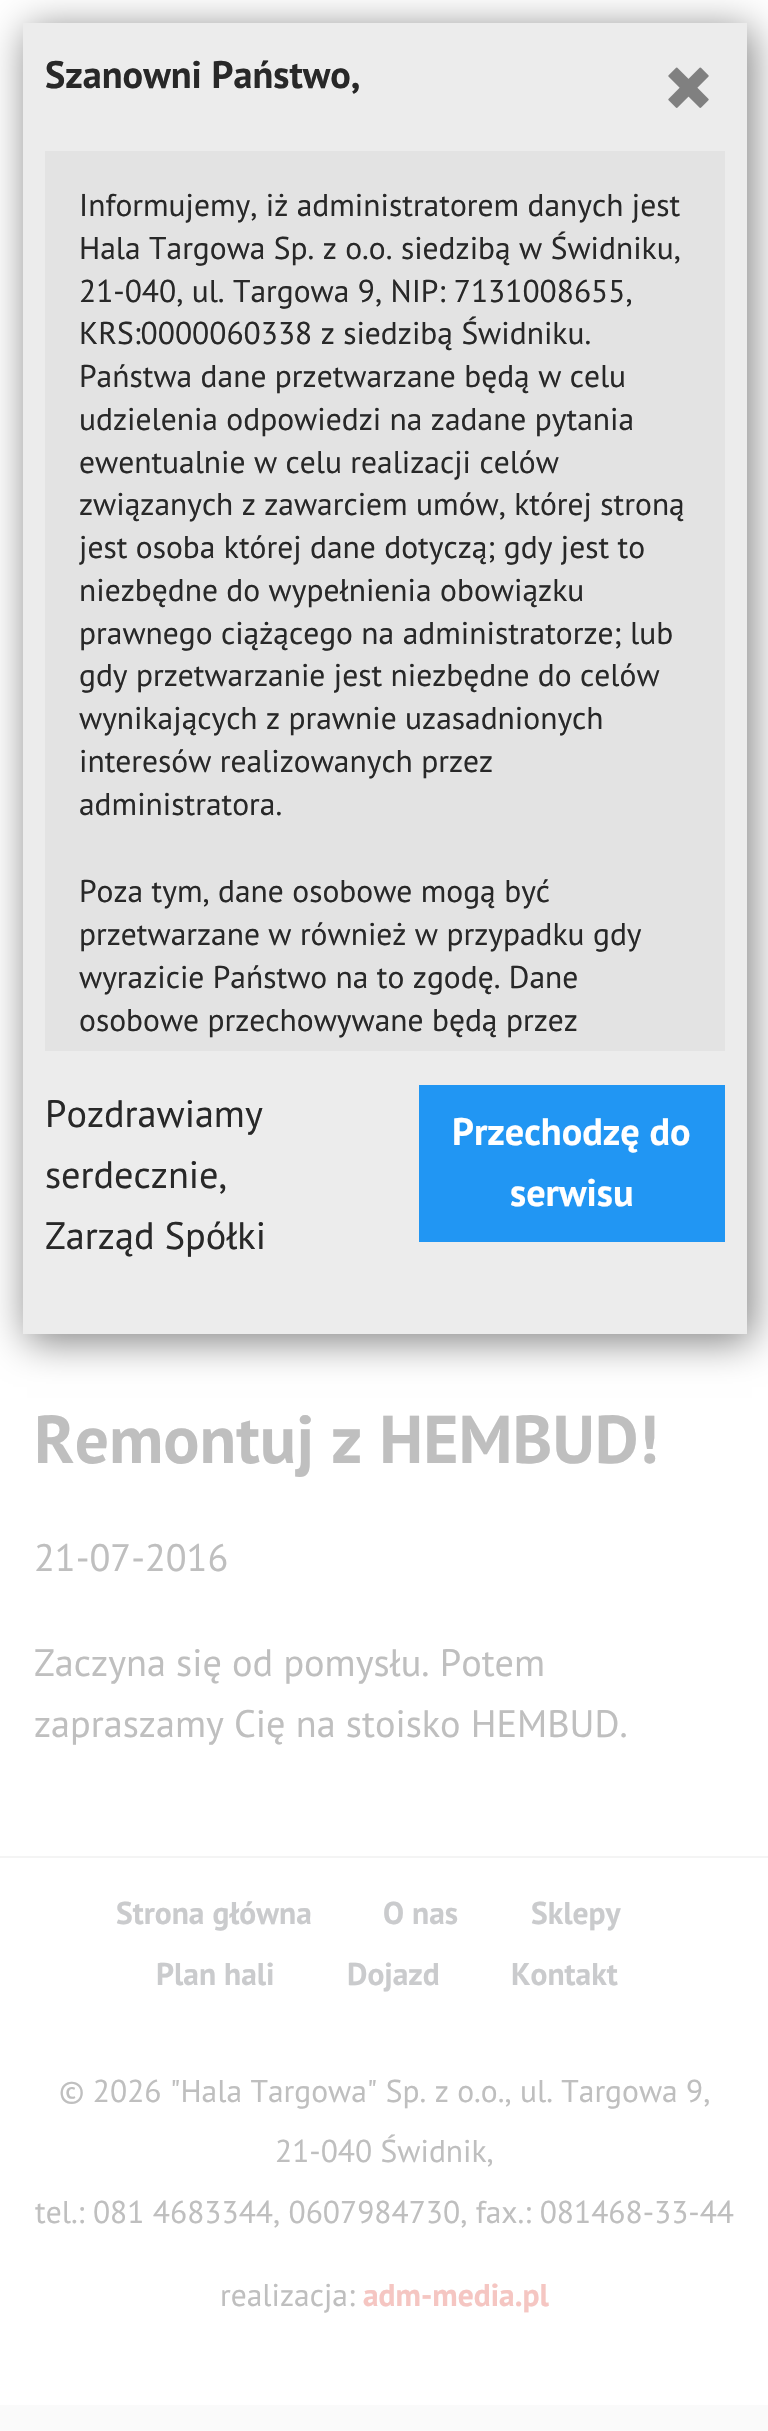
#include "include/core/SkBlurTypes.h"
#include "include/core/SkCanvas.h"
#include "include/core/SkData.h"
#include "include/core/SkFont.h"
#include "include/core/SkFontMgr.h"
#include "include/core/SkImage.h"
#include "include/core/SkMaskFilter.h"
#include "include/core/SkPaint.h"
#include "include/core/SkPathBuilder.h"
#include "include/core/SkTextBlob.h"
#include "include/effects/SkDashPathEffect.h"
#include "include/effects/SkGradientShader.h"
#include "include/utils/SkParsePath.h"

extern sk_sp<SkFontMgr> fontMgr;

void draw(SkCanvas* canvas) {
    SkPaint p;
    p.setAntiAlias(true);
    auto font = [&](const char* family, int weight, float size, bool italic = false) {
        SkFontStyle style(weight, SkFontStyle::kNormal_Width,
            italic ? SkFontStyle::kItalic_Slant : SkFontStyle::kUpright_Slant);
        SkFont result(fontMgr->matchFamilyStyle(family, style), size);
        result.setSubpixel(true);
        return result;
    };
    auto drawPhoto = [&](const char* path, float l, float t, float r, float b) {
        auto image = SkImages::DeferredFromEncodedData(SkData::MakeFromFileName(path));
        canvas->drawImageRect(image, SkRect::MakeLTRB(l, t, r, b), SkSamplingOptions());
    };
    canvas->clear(0xFFFFFFFF);
    p.setColor(0xFF808080);
    p.setMaskFilter(SkMaskFilter::MakeBlur(kNormal_SkBlurStyle, 19));
    canvas->drawRect(SkRect::MakeLTRB(27, 29, 752, 1341), p);
    p.setMaskFilter(nullptr);
    p.setColor(0xFFECECEC);
    canvas->drawRect(SkRect::MakeLTRB(23, 23, 747, 1334), p);
    auto font1 = font("PT Sans", 700, 38.25f);
    p.setColor(0xFF282828);
    canvas->drawString("Szanowni Państwo,", 45, 88, font1, p);
    drawPhoto("media/1.png", 668, 67, 709, 108);
    p.setColor(0xFFE3E3E3);
    canvas->drawRect(SkRect::MakeLTRB(45, 151, 725, 1051), p);
    auto font2 = font("PT Sans", 400, 31.5f);
    p.setColor(0xFF282828);
    {
        const struct { const char* s; float x, y; } items[] = {
            {"Informujemy, iż administratorem danych jest", 79, 216},
            {"Hala Targowa Sp. z o.o. siedzibą w Świdniku,", 79, 259},
            {"21-040, ul. Targowa 9, NIP: 7131008655,", 79, 302},
            {"KRS:0000060338 z siedzibą Świdniku.", 79, 344},
            {"Państwa dane przetwarzane będą w celu", 79, 387},
            {"udzielenia odpowiedzi na zadane pytania", 79, 430},
            {"ewentualnie w celu realizacji celów", 79, 473},
            {"związanych z zawarciem umów, której stroną", 79, 515},
            {"jest osoba której dane dotyczą; gdy jest to", 79, 558},
            {"niezbędne do wypełnienia obowiązku", 79, 601},
            {"prawnego ciążącego na administratorze; lub", 79, 644},
            {"gdy przetwarzanie jest niezbędne do celów", 79, 686},
            {"wynikających z prawnie uzasadnionych", 79, 729},
            {"interesów realizowanych przez", 79, 772},
            {"administratora.", 79, 815},
            {"Poza tym, dane osobowe mogą być", 79, 902},
            {"przetwarzane w również w przypadku gdy", 79, 945},
            {"wyrazicie Państwo na to zgodę. Dane", 79, 988},
            {"osobowe przechowywane będą przez", 79, 1031},
        };
        for (auto [s, x, y] : items) {
            canvas->drawString(s, x, y, font2, p);
        }
    }
    auto font3 = font("PT Sans", 400, 38.25f);
    {
        const struct { const char* s; float x, y; } items[] = {
            {"Pozdrawiamy", 45, 1127},
            {"serdecznie,", 45, 1188},
            {"Zarząd Spółki", 45, 1249},
        };
        for (auto [s, x, y] : items) {
            canvas->drawString(s, x, y, font3, p);
        }
    }
    p.setColor(0xFF2196F3);
    canvas->drawRect(SkRect::MakeLTRB(419, 1085, 725, 1242), p);
    p.setColor(0xFFFFFFFF);
    canvas->drawString("Przechodzę do", 452, 1145, font1, p);
    canvas->drawString("serwisu", 510, 1206, font1, p);
    auto font4 = font("PT Sans", 700, 67.5f);
    p.setColor(0xFFBFBFBF);
    canvas->drawString("Remontuj z HEMBUD!", 34, 1463, font4, p);
    {
        const struct { const char* s; float x, y; } items[] = {
            {"21-07-2016", 34, 1571},
            {"Zaczyna się od pomysłu. Potem", 34, 1676},
            {"zapraszamy Cię na stoisko HEMBUD.", 34, 1737},
        };
        for (auto [s, x, y] : items) {
            canvas->drawString(s, x, y, font3, p);
        }
    }
    p.setColor(0xFFF4F4F4);
    canvas->drawRect(SkRect::MakeLTRB(0, 1856, 768, 1858), p);
    auto font5 = font("PT Sans", 700, 31.5f);
    p.setColor(0xFFCACBCD);
    {
        const struct { const char* s; float x, y; } items[] = {
            {"Strona główna", 116, 1924},
            {"O nas", 383, 1924},
            {"Sklepy", 531, 1924},
            {"Plan hali", 156, 1985},
            {"Dojazd", 347, 1985},
            {"Kontakt", 511, 1985},
        };
        for (auto [s, x, y] : items) {
            canvas->drawString(s, x, y, font5, p);
        }
    }
    p.setColor(0xFFBFBFBF);
    {
        const struct { const char* s; float x, y; } items[] = {
            {"© 2026 \"Hala Targowa\" Sp. z o.o., ul. Targowa 9,", 59, 2102},
            {"21-040 Świdnik,", 275, 2162},
            {"tel.: 081 4683344, 0607984730, fax.: 081468-33-44", 35, 2223},
            {"realizacja:", 220, 2306},
        };
        for (auto [s, x, y] : items) {
            canvas->drawString(s, x, y, font2, p);
        }
    }
    p.setColor(0xFFF5C6C2);
    canvas->drawString("adm-media.pl", 363, 2306, font5, p);
    p.setColor(0xFFFAFAFA);
    canvas->drawRect(SkRect::MakeLTRB(0, 2405, 768, 2431), p);
}
